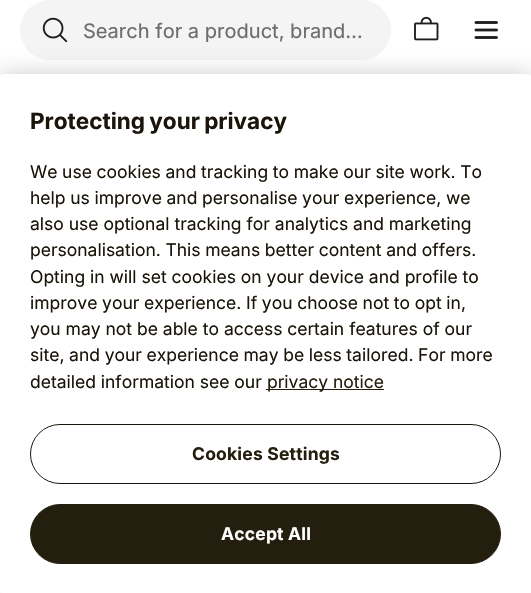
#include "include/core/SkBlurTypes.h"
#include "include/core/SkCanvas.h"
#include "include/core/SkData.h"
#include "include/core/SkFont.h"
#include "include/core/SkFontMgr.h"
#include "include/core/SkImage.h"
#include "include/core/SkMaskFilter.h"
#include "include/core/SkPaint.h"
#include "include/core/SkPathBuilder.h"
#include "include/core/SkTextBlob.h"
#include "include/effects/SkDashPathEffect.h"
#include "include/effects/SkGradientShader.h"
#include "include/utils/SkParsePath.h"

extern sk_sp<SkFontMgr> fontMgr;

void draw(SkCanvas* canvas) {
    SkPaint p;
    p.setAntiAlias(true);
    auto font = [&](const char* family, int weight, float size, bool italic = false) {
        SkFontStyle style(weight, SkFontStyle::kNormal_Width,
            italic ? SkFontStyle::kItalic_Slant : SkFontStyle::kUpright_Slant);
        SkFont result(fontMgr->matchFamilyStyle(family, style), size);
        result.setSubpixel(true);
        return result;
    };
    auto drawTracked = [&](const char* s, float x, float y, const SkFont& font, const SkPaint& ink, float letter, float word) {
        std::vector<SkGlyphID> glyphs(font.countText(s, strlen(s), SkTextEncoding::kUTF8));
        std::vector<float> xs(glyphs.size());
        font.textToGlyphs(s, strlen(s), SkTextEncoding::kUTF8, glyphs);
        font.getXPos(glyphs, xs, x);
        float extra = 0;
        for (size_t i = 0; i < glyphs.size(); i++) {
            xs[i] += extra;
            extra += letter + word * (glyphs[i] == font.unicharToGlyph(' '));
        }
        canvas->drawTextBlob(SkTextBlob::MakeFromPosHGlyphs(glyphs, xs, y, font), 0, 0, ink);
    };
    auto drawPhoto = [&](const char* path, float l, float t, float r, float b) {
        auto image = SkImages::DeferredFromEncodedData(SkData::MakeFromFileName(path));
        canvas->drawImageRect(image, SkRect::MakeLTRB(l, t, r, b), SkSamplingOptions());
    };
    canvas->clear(0xFFFFFFFF);
    p.setColor(0xFFF4F4F4);
    canvas->drawRoundRect(SkRect::MakeLTRB(20, 0, 391, 60), 30, 30, p);
    drawPhoto("media/1.png", 42, 17, 68, 43);
    auto font1 = font("Inter", 400, 20);
    p.setColor(0xFF6E6E6E);
    canvas->drawString("Search for a product, brand…", 83, 38, font1, p);
    drawPhoto("media/2.png", 414, 16, 439, 41);
    drawPhoto("media/3.png", 474, 21, 498, 39);
    p.setColor(0x33000000);
    p.setMaskFilter(SkMaskFilter::MakeBlur(kNormal_SkBlurStyle, 11));
    canvas->drawRoundRect(SkRect::MakeLTRB(0, 74, 531, 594), 3, 3, p);
    p.setMaskFilter(nullptr);
    p.setColor(0xFFFFFFFF);
    canvas->drawRoundRect(SkRect::MakeLTRB(0, 74, 531, 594), 3, 3, p);
    auto font2 = font("Inter", 700, 22.5f);
    p.setColor(0xFF1A150A);
    drawTracked("Protecting your privacy", 30, 129, font2, p, 0, -1);
    auto font3 = font("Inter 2", 400, 17.5f);
    drawTracked("We use cookies and tracking to make our site work. To", 30, 178, font3, p, 0, -0.25f);
    drawTracked("help us improve and personalise your experience, we", 30, 204, font3, p, 0, -0.25f);
    canvas->drawString("also use optional tracking for analytics and marketing", 30, 230, font3, p);
    drawTracked("personalisation. This means better content and offers.", 30, 256, font3, p, 0, -0.25f);
    canvas->drawString("Opting in will set cookies on your device and profile to", 30, 283, font3, p);
    drawTracked("improve your experience. If you choose not to opt in,", 30, 309, font3, p, 0, -0.25f);
    canvas->drawString("you may not be able to access certain features of our", 30, 335, font3, p);
    drawTracked("site, and your experience may be less tailored. For more", 30, 361, font3, p, 0, -0.25f);
    canvas->drawString("detailed information see our", 30, 388, font3, p);
    p.setColor(0xFF241E0E);
    canvas->drawRect(SkRect::MakeLTRB(266, 389, 384, 390), p);
    canvas->drawString("privacy notice", 267, 388, font3, p);
    p.setStyle(SkPaint::kStroke_Style);
    p.setStrokeWidth(1);
    p.setColor(0xFF1A150A);
    canvas->drawRoundRect(SkRect::MakeLTRB(30.5f, 424.5f, 500.5f, 483.5f), 29.5f, 29.5f, p);
    auto font4 = font("Inter", 700, 17.5f);
    p.setStyle(SkPaint::kFill_Style);
    p.setColor(0xFF241E0E);
    drawTracked("Cookies Settings", 192, 460, font4, p, 0.2f, 0);
    canvas->drawRoundRect(SkRect::MakeLTRB(30.5f, 504.5f, 500.5f, 563.5f), 29.5f, 29.5f, p);
    p.setStyle(SkPaint::kStroke_Style);
    canvas->drawRoundRect(SkRect::MakeLTRB(30.5f, 504.5f, 500.5f, 563.5f), 29.5f, 29.5f, p);
    p.setStyle(SkPaint::kFill_Style);
    p.setColor(0xFFFFFFFF);
    drawTracked("Accept All", 221, 540, font4, p, 0.2f, 0);
}
